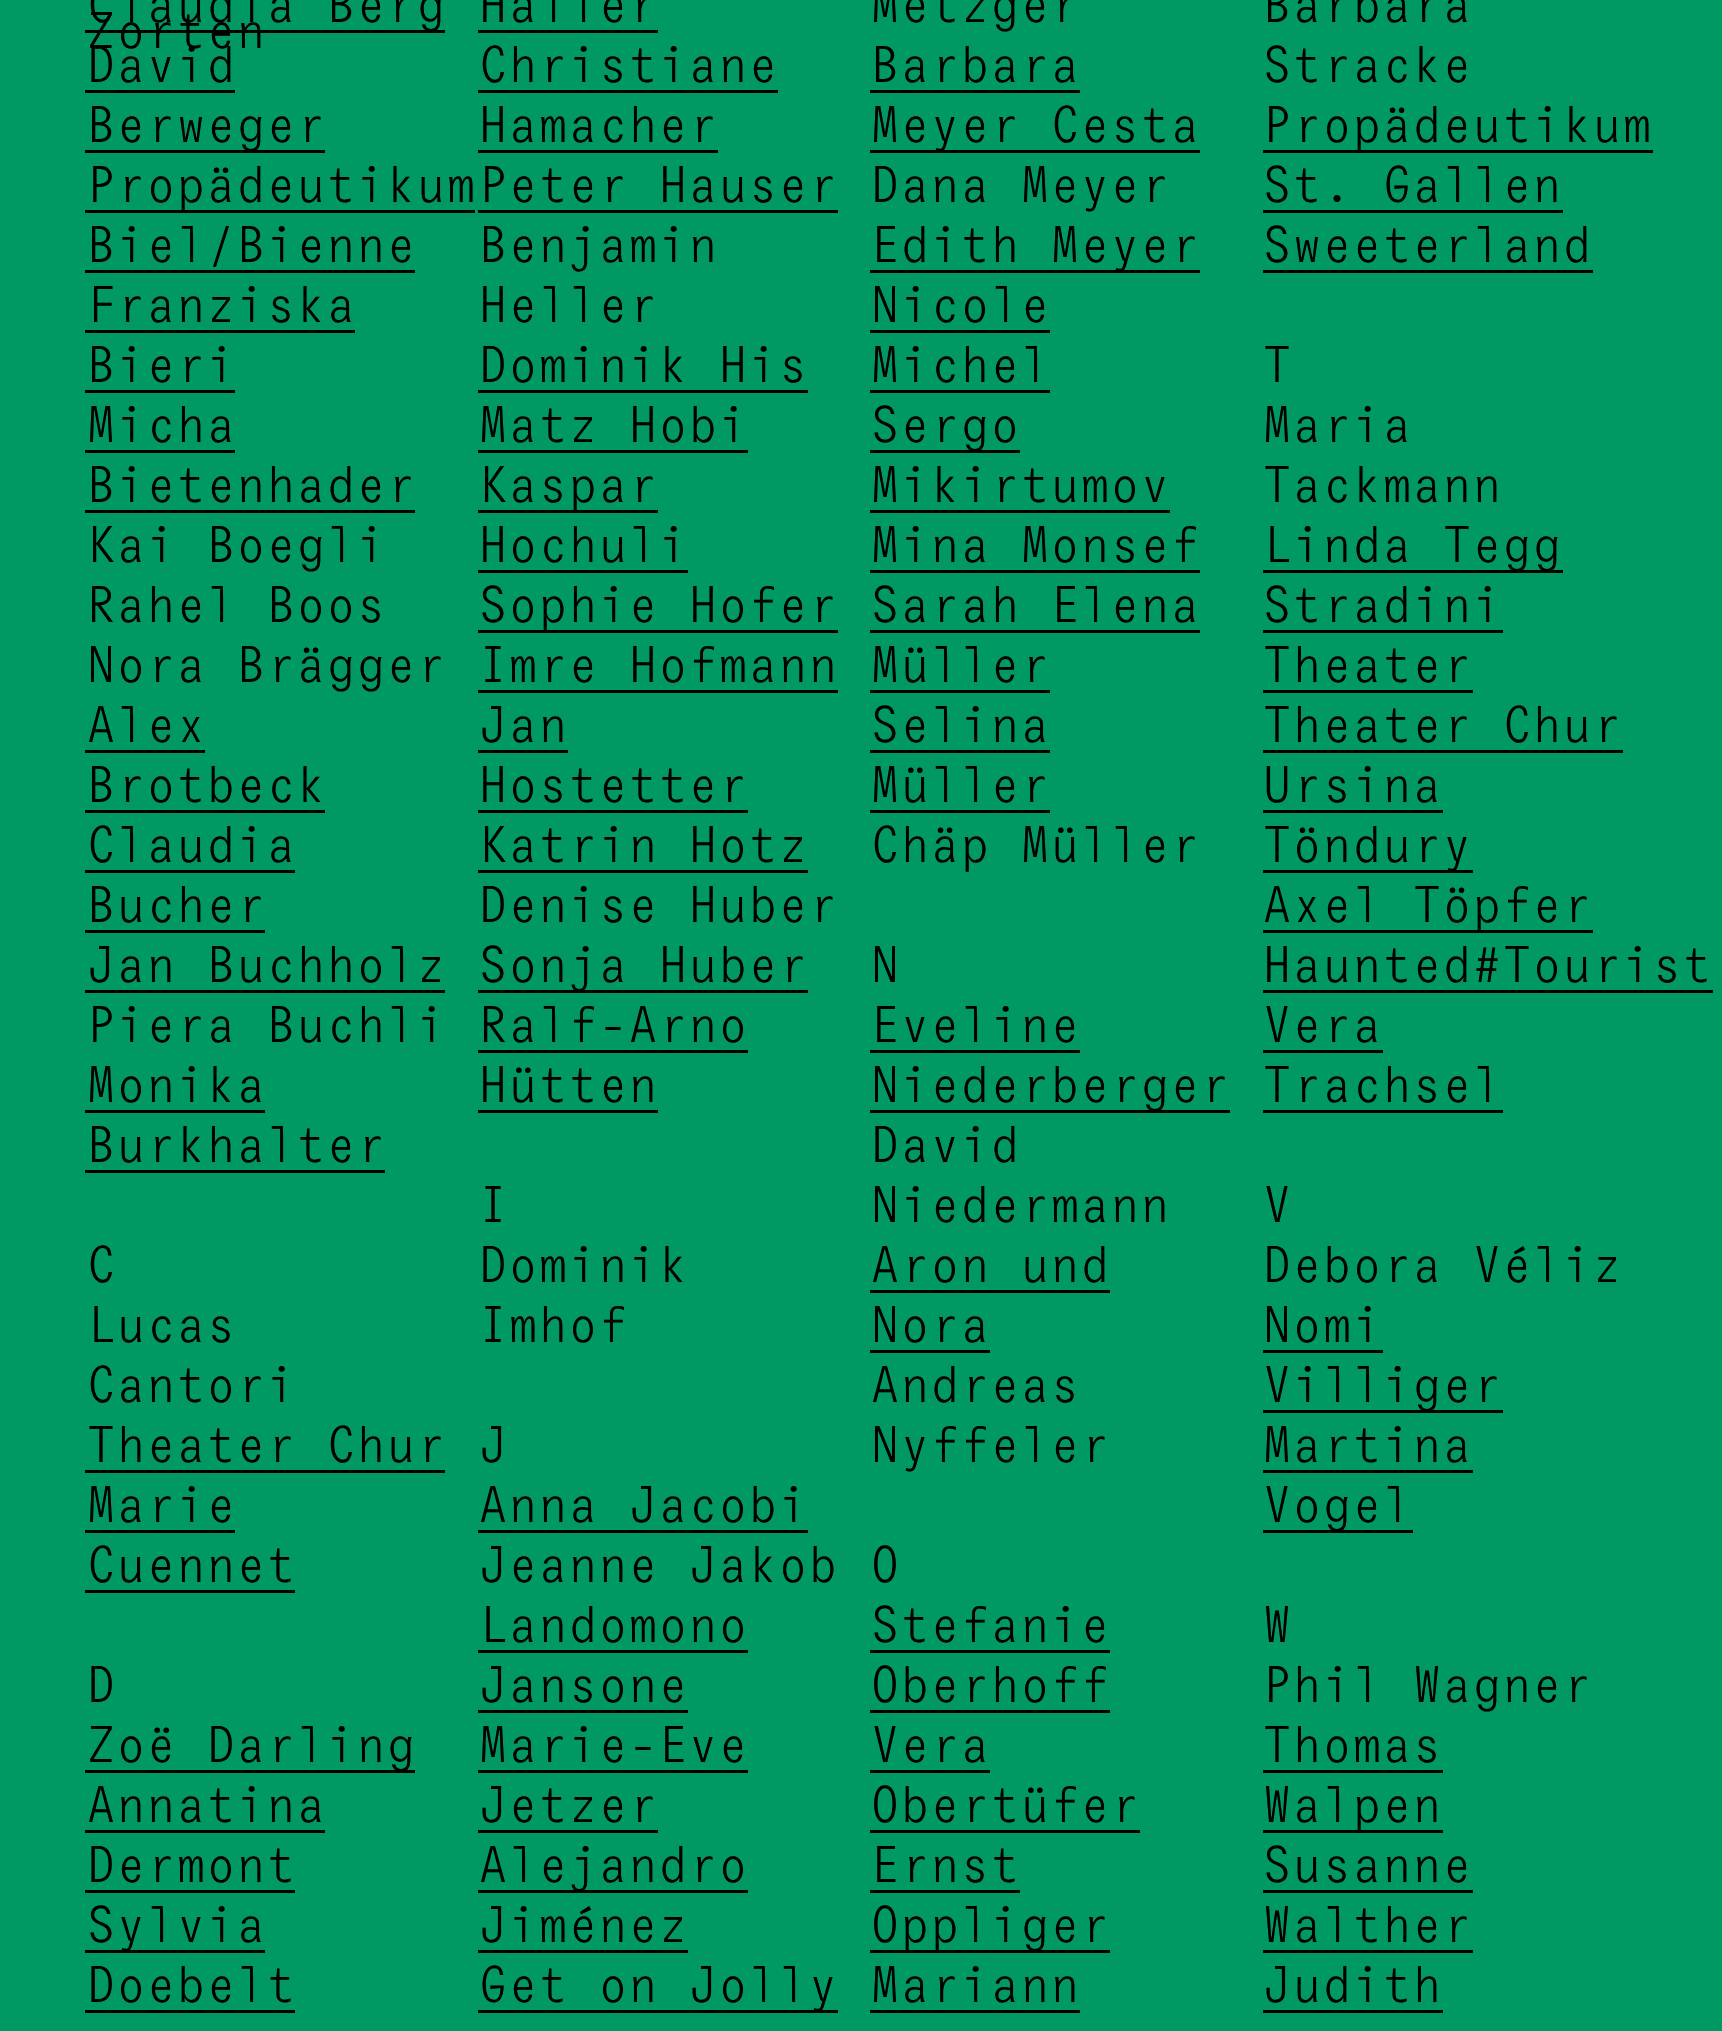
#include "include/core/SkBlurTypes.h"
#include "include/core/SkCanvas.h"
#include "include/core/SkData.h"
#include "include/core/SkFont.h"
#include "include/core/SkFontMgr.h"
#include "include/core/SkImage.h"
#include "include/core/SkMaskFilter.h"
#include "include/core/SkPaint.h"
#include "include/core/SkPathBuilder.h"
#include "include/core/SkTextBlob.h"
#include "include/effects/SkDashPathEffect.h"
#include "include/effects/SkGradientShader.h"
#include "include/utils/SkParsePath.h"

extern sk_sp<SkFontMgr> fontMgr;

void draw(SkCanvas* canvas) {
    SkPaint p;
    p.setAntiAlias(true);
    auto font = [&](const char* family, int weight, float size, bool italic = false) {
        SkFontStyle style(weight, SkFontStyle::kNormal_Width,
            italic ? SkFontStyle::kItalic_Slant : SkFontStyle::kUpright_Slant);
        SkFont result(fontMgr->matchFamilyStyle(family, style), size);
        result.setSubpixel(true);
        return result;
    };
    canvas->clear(0xFF009963);
    p.setColor(0xFF000000);
    canvas->drawRect(SkRect::MakeLTRB(85, 30, 445, 33), p);
    auto font1 = font("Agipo", 400, 50);
    canvas->drawString("Claudia Berg", 86, 22, font1, p);
    canvas->drawString("David", 86, 82, font1, p);
    canvas->drawRect(SkRect::MakeLTRB(85, 90, 235, 93), p);
    canvas->drawRect(SkRect::MakeLTRB(85, 150, 325, 153), p);
    canvas->drawString("Berweger", 86, 142, font1, p);
    canvas->drawRect(SkRect::MakeLTRB(85, 210, 475, 213), p);
    canvas->drawString("Propädeutikum", 86, 202, font1, p);
    canvas->drawString("Biel/Bienne", 86, 262, font1, p);
    canvas->drawRect(SkRect::MakeLTRB(85, 270, 415, 273), p);
    canvas->drawString("Franziska", 86, 322, font1, p);
    canvas->drawRect(SkRect::MakeLTRB(85, 330, 355, 333), p);
    canvas->drawString("Bieri", 86, 382, font1, p);
    canvas->drawRect(SkRect::MakeLTRB(85, 390, 235, 393), p);
    canvas->drawString("Micha", 86, 442, font1, p);
    canvas->drawRect(SkRect::MakeLTRB(85, 450, 235, 453), p);
    canvas->drawString("Bietenhader", 86, 502, font1, p);
    canvas->drawRect(SkRect::MakeLTRB(85, 510, 415, 513), p);
    {
        const struct { const char* s; float x, y; } items[] = {
            {"Kai Boegli", 86, 562},
            {"Rahel Boos", 86, 622},
            {"Nora Brägger", 86, 682},
            {"Alex", 86, 742},
        };
        for (auto [s, x, y] : items) {
            canvas->drawString(s, x, y, font1, p);
        }
    }
    canvas->drawRect(SkRect::MakeLTRB(85, 750, 205, 753), p);
    canvas->drawString("Brotbeck", 86, 802, font1, p);
    canvas->drawRect(SkRect::MakeLTRB(85, 810, 325, 813), p);
    canvas->drawString("Claudia", 86, 862, font1, p);
    canvas->drawRect(SkRect::MakeLTRB(85, 870, 295, 873), p);
    canvas->drawString("Bucher", 86, 922, font1, p);
    canvas->drawRect(SkRect::MakeLTRB(85, 930, 265, 933), p);
    canvas->drawString("Jan Buchholz", 86, 982, font1, p);
    canvas->drawRect(SkRect::MakeLTRB(85, 990, 445, 993), p);
    canvas->drawString("Piera Buchli", 86, 1042, font1, p);
    canvas->drawString("Monika", 86, 1102, font1, p);
    canvas->drawRect(SkRect::MakeLTRB(85, 1110, 265, 1113), p);
    canvas->drawString("Burkhalter", 86, 1162, font1, p);
    canvas->drawRect(SkRect::MakeLTRB(85, 1170, 385, 1173), p);
    {
        const struct { const char* s; float x, y; } items[] = {
            {"C", 86, 1282},
            {"Lucas", 86, 1342},
            {"Cantori", 86, 1402},
            {"Theater Chur", 86, 1462},
        };
        for (auto [s, x, y] : items) {
            canvas->drawString(s, x, y, font1, p);
        }
    }
    canvas->drawRect(SkRect::MakeLTRB(85, 1470, 445, 1473), p);
    canvas->drawString("Marie", 86, 1522, font1, p);
    canvas->drawRect(SkRect::MakeLTRB(85, 1530, 235, 1533), p);
    canvas->drawString("Cuennet", 86, 1582, font1, p);
    canvas->drawRect(SkRect::MakeLTRB(85, 1590, 295, 1593), p);
    canvas->drawString("D", 86, 1702, font1, p);
    canvas->drawRect(SkRect::MakeLTRB(85, 1770, 415, 1773), p);
    canvas->drawString("Zoë Darling", 86, 1762, font1, p);
    canvas->drawString("Annatina", 86, 1822, font1, p);
    canvas->drawRect(SkRect::MakeLTRB(85, 1830, 325, 1833), p);
    canvas->drawString("Dermont", 86, 1882, font1, p);
    canvas->drawRect(SkRect::MakeLTRB(85, 1890, 295, 1893), p);
    canvas->drawRect(SkRect::MakeLTRB(85, 1950, 265, 1953), p);
    canvas->drawString("Sylvia", 86, 1942, font1, p);
    canvas->drawString("Doebelt", 86, 2002, font1, p);
    canvas->drawRect(SkRect::MakeLTRB(85, 2010, 295, 2013), p);
    canvas->drawString("Häller", 478, 22, font1, p);
    canvas->drawRect(SkRect::MakeLTRB(478, 30, 658, 33), p);
    canvas->drawString("Christiane", 478, 82, font1, p);
    canvas->drawRect(SkRect::MakeLTRB(478, 90, 778, 93), p);
    canvas->drawString("Hamacher", 478, 142, font1, p);
    canvas->drawRect(SkRect::MakeLTRB(478, 150, 718, 153), p);
    canvas->drawString("Peter Hauser", 478, 202, font1, p);
    canvas->drawRect(SkRect::MakeLTRB(478, 210, 838, 213), p);
    {
        const struct { const char* s; float x, y; } items[] = {
            {"Benjamin", 478, 262},
            {"Heller", 478, 322},
            {"Dominik His", 478, 382},
        };
        for (auto [s, x, y] : items) {
            canvas->drawString(s, x, y, font1, p);
        }
    }
    canvas->drawRect(SkRect::MakeLTRB(478, 390, 808, 393), p);
    canvas->drawString("Matz Hobi", 478, 442, font1, p);
    canvas->drawRect(SkRect::MakeLTRB(478, 450, 748, 453), p);
    canvas->drawRect(SkRect::MakeLTRB(478, 510, 658, 513), p);
    canvas->drawString("Kaspar", 478, 502, font1, p);
    canvas->drawString("Hochuli", 478, 562, font1, p);
    canvas->drawRect(SkRect::MakeLTRB(478, 570, 688, 573), p);
    canvas->drawRect(SkRect::MakeLTRB(478, 630, 838, 633), p);
    canvas->drawString("Sophie Hofer", 478, 622, font1, p);
    canvas->drawString("Imre Hofmann", 478, 682, font1, p);
    canvas->drawRect(SkRect::MakeLTRB(478, 690, 838, 693), p);
    canvas->drawString("Jan", 478, 742, font1, p);
    canvas->drawRect(SkRect::MakeLTRB(478, 750, 568, 753), p);
    canvas->drawString("Hostetter", 478, 802, font1, p);
    canvas->drawRect(SkRect::MakeLTRB(478, 810, 748, 813), p);
    canvas->drawString("Katrin Hotz", 478, 862, font1, p);
    canvas->drawRect(SkRect::MakeLTRB(478, 870, 808, 873), p);
    canvas->drawString("Denise Huber", 478, 922, font1, p);
    canvas->drawRect(SkRect::MakeLTRB(478, 990, 808, 993), p);
    canvas->drawString("Sonja Huber", 478, 982, font1, p);
    canvas->drawString("Ralf-Arno", 478, 1042, font1, p);
    canvas->drawRect(SkRect::MakeLTRB(478, 1050, 748, 1053), p);
    canvas->drawString("Hütten", 478, 1102, font1, p);
    canvas->drawRect(SkRect::MakeLTRB(478, 1110, 658, 1113), p);
    {
        const struct { const char* s; float x, y; } items[] = {
            {"I", 478, 1222},
            {"Dominik", 478, 1282},
            {"Imhof", 478, 1342},
            {"J", 478, 1462},
            {"Anna Jacobi", 478, 1522},
        };
        for (auto [s, x, y] : items) {
            canvas->drawString(s, x, y, font1, p);
        }
    }
    canvas->drawRect(SkRect::MakeLTRB(478, 1530, 808, 1533), p);
    canvas->drawString("Jeanne Jakob", 478, 1582, font1, p);
    canvas->drawString("Landomono", 478, 1642, font1, p);
    canvas->drawRect(SkRect::MakeLTRB(478, 1650, 748, 1653), p);
    canvas->drawString("Jansone", 478, 1702, font1, p);
    canvas->drawRect(SkRect::MakeLTRB(478, 1710, 688, 1713), p);
    canvas->drawString("Marie-Eve", 478, 1762, font1, p);
    canvas->drawRect(SkRect::MakeLTRB(478, 1770, 748, 1773), p);
    canvas->drawString("Jetzer", 478, 1822, font1, p);
    canvas->drawRect(SkRect::MakeLTRB(478, 1830, 658, 1833), p);
    canvas->drawRect(SkRect::MakeLTRB(478, 1890, 748, 1893), p);
    canvas->drawString("Alejandro", 478, 1882, font1, p);
    canvas->drawString("Jiménez", 478, 1942, font1, p);
    canvas->drawRect(SkRect::MakeLTRB(478, 1950, 688, 1953), p);
    canvas->drawRect(SkRect::MakeLTRB(478, 2010, 838, 2013), p);
    {
        const struct { const char* s; float x, y; } items[] = {
            {"Get on Jolly", 478, 2002},
            {"Metzger", 870, 22},
            {"Barbara", 870, 82},
        };
        for (auto [s, x, y] : items) {
            canvas->drawString(s, x, y, font1, p);
        }
    }
    canvas->drawRect(SkRect::MakeLTRB(870, 90, 1080, 93), p);
    canvas->drawRect(SkRect::MakeLTRB(870, 150, 1200, 153), p);
    canvas->drawString("Meyer Cesta", 870, 142, font1, p);
    canvas->drawString("Dana Meyer", 870, 202, font1, p);
    canvas->drawRect(SkRect::MakeLTRB(870, 270, 1200, 273), p);
    canvas->drawString("Edith Meyer", 870, 262, font1, p);
    canvas->drawString("Nicole", 870, 322, font1, p);
    canvas->drawRect(SkRect::MakeLTRB(870, 330, 1050, 333), p);
    canvas->drawString("Michel", 870, 382, font1, p);
    canvas->drawRect(SkRect::MakeLTRB(870, 390, 1050, 393), p);
    canvas->drawRect(SkRect::MakeLTRB(870, 450, 1020, 453), p);
    canvas->drawString("Sergo", 870, 442, font1, p);
    canvas->drawString("Mikirtumov", 870, 502, font1, p);
    canvas->drawRect(SkRect::MakeLTRB(870, 510, 1170, 513), p);
    canvas->drawString("Mina Monsef", 870, 562, font1, p);
    canvas->drawRect(SkRect::MakeLTRB(870, 570, 1200, 573), p);
    canvas->drawString("Sarah Elena", 870, 622, font1, p);
    canvas->drawRect(SkRect::MakeLTRB(870, 630, 1200, 633), p);
    canvas->drawString("Müller", 870, 682, font1, p);
    canvas->drawRect(SkRect::MakeLTRB(870, 690, 1050, 693), p);
    canvas->drawString("Selina", 870, 742, font1, p);
    canvas->drawRect(SkRect::MakeLTRB(870, 750, 1050, 753), p);
    canvas->drawString("Müller", 870, 802, font1, p);
    canvas->drawRect(SkRect::MakeLTRB(870, 810, 1050, 813), p);
    {
        const struct { const char* s; float x, y; } items[] = {
            {"Chäp Müller", 870, 862},
            {"N", 870, 982},
            {"Eveline", 870, 1042},
        };
        for (auto [s, x, y] : items) {
            canvas->drawString(s, x, y, font1, p);
        }
    }
    canvas->drawRect(SkRect::MakeLTRB(870, 1050, 1080, 1053), p);
    canvas->drawRect(SkRect::MakeLTRB(870, 1110, 1230, 1113), p);
    {
        const struct { const char* s; float x, y; } items[] = {
            {"Niederberger", 870, 1102},
            {"David", 870, 1162},
            {"Niedermann", 870, 1222},
            {"Aron und", 870, 1282},
        };
        for (auto [s, x, y] : items) {
            canvas->drawString(s, x, y, font1, p);
        }
    }
    canvas->drawRect(SkRect::MakeLTRB(870, 1290, 1110, 1293), p);
    canvas->drawString("Nora", 870, 1342, font1, p);
    canvas->drawRect(SkRect::MakeLTRB(870, 1350, 990, 1353), p);
    {
        const struct { const char* s; float x, y; } items[] = {
            {"Andreas", 870, 1402},
            {"Nyffeler", 870, 1462},
            {"O", 870, 1582},
            {"Stefanie", 870, 1642},
        };
        for (auto [s, x, y] : items) {
            canvas->drawString(s, x, y, font1, p);
        }
    }
    canvas->drawRect(SkRect::MakeLTRB(870, 1650, 1110, 1653), p);
    canvas->drawString("Oberhoff", 870, 1702, font1, p);
    canvas->drawRect(SkRect::MakeLTRB(870, 1710, 1110, 1713), p);
    canvas->drawString("Vera", 870, 1762, font1, p);
    canvas->drawRect(SkRect::MakeLTRB(870, 1770, 990, 1773), p);
    canvas->drawString("Obertüfer", 870, 1822, font1, p);
    canvas->drawRect(SkRect::MakeLTRB(870, 1830, 1140, 1833), p);
    canvas->drawString("Ernst", 870, 1882, font1, p);
    canvas->drawRect(SkRect::MakeLTRB(870, 1890, 1020, 1893), p);
    canvas->drawRect(SkRect::MakeLTRB(870, 1950, 1110, 1953), p);
    canvas->drawString("Oppliger", 870, 1942, font1, p);
    canvas->drawString("Mariann", 870, 2002, font1, p);
    canvas->drawRect(SkRect::MakeLTRB(870, 2010, 1080, 2013), p);
    canvas->drawString("Barbara", 1262, 22, font1, p);
    canvas->drawString("Stracke", 1262, 82, font1, p);
    canvas->drawRect(SkRect::MakeLTRB(1263, 150, 1653, 153), p);
    canvas->drawString("Propädeutikum", 1262, 142, font1, p);
    canvas->drawString("St. Gallen", 1262, 202, font1, p);
    canvas->drawRect(SkRect::MakeLTRB(1263, 210, 1563, 213), p);
    canvas->drawString("Sweeterland", 1262, 262, font1, p);
    canvas->drawRect(SkRect::MakeLTRB(1263, 270, 1593, 273), p);
    {
        const struct { const char* s; float x, y; } items[] = {
            {"T", 1262, 382},
            {"Maria", 1262, 442},
            {"Tackmann", 1262, 502},
        };
        for (auto [s, x, y] : items) {
            canvas->drawString(s, x, y, font1, p);
        }
    }
    canvas->drawRect(SkRect::MakeLTRB(1263, 570, 1563, 573), p);
    canvas->drawString("Linda Tegg", 1262, 562, font1, p);
    canvas->drawString("Stradini", 1262, 622, font1, p);
    canvas->drawRect(SkRect::MakeLTRB(1263, 630, 1503, 633), p);
    canvas->drawString("Theater", 1262, 682, font1, p);
    canvas->drawRect(SkRect::MakeLTRB(1263, 690, 1473, 693), p);
    canvas->drawString("Theater Chur", 1262, 742, font1, p);
    canvas->drawRect(SkRect::MakeLTRB(1263, 750, 1623, 753), p);
    canvas->drawString("Ursina", 1262, 802, font1, p);
    canvas->drawRect(SkRect::MakeLTRB(1263, 810, 1443, 813), p);
    canvas->drawRect(SkRect::MakeLTRB(1263, 870, 1473, 873), p);
    canvas->drawString("Töndury", 1262, 862, font1, p);
    canvas->drawRect(SkRect::MakeLTRB(1263, 930, 1593, 933), p);
    canvas->drawString("Axel Töpfer", 1262, 922, font1, p);
    canvas->drawString("Haunted#Tourist", 1262, 982, font1, p);
    canvas->drawRect(SkRect::MakeLTRB(1263, 990, 1713, 993), p);
    canvas->drawString("Vera", 1262, 1042, font1, p);
    canvas->drawRect(SkRect::MakeLTRB(1263, 1050, 1383, 1053), p);
    canvas->drawString("Trachsel", 1262, 1102, font1, p);
    canvas->drawRect(SkRect::MakeLTRB(1263, 1110, 1503, 1113), p);
    {
        const struct { const char* s; float x, y; } items[] = {
            {"V", 1262, 1222},
            {"Debora Véliz", 1262, 1282},
            {"Nomi", 1262, 1342},
        };
        for (auto [s, x, y] : items) {
            canvas->drawString(s, x, y, font1, p);
        }
    }
    canvas->drawRect(SkRect::MakeLTRB(1263, 1350, 1383, 1353), p);
    canvas->drawRect(SkRect::MakeLTRB(1263, 1410, 1503, 1413), p);
    canvas->drawString("Villiger", 1262, 1402, font1, p);
    canvas->drawString("Martina", 1262, 1462, font1, p);
    canvas->drawRect(SkRect::MakeLTRB(1263, 1470, 1473, 1473), p);
    canvas->drawRect(SkRect::MakeLTRB(1263, 1530, 1413, 1533), p);
    {
        const struct { const char* s; float x, y; } items[] = {
            {"Vogel", 1262, 1522},
            {"W", 1262, 1642},
            {"Phil Wagner", 1262, 1702},
            {"Thomas", 1262, 1762},
        };
        for (auto [s, x, y] : items) {
            canvas->drawString(s, x, y, font1, p);
        }
    }
    canvas->drawRect(SkRect::MakeLTRB(1263, 1770, 1443, 1773), p);
    canvas->drawRect(SkRect::MakeLTRB(1263, 1830, 1443, 1833), p);
    canvas->drawString("Walpen", 1262, 1822, font1, p);
    canvas->drawString("Susanne", 1262, 1882, font1, p);
    canvas->drawRect(SkRect::MakeLTRB(1263, 1890, 1473, 1893), p);
    canvas->drawString("Walther", 1262, 1942, font1, p);
    canvas->drawRect(SkRect::MakeLTRB(1263, 1950, 1473, 1953), p);
    canvas->drawString("Judith", 1262, 2002, font1, p);
    canvas->drawRect(SkRect::MakeLTRB(1263, 2010, 1443, 2013), p);
    canvas->drawString("Zorten", 86, 48, font1, p);
}
